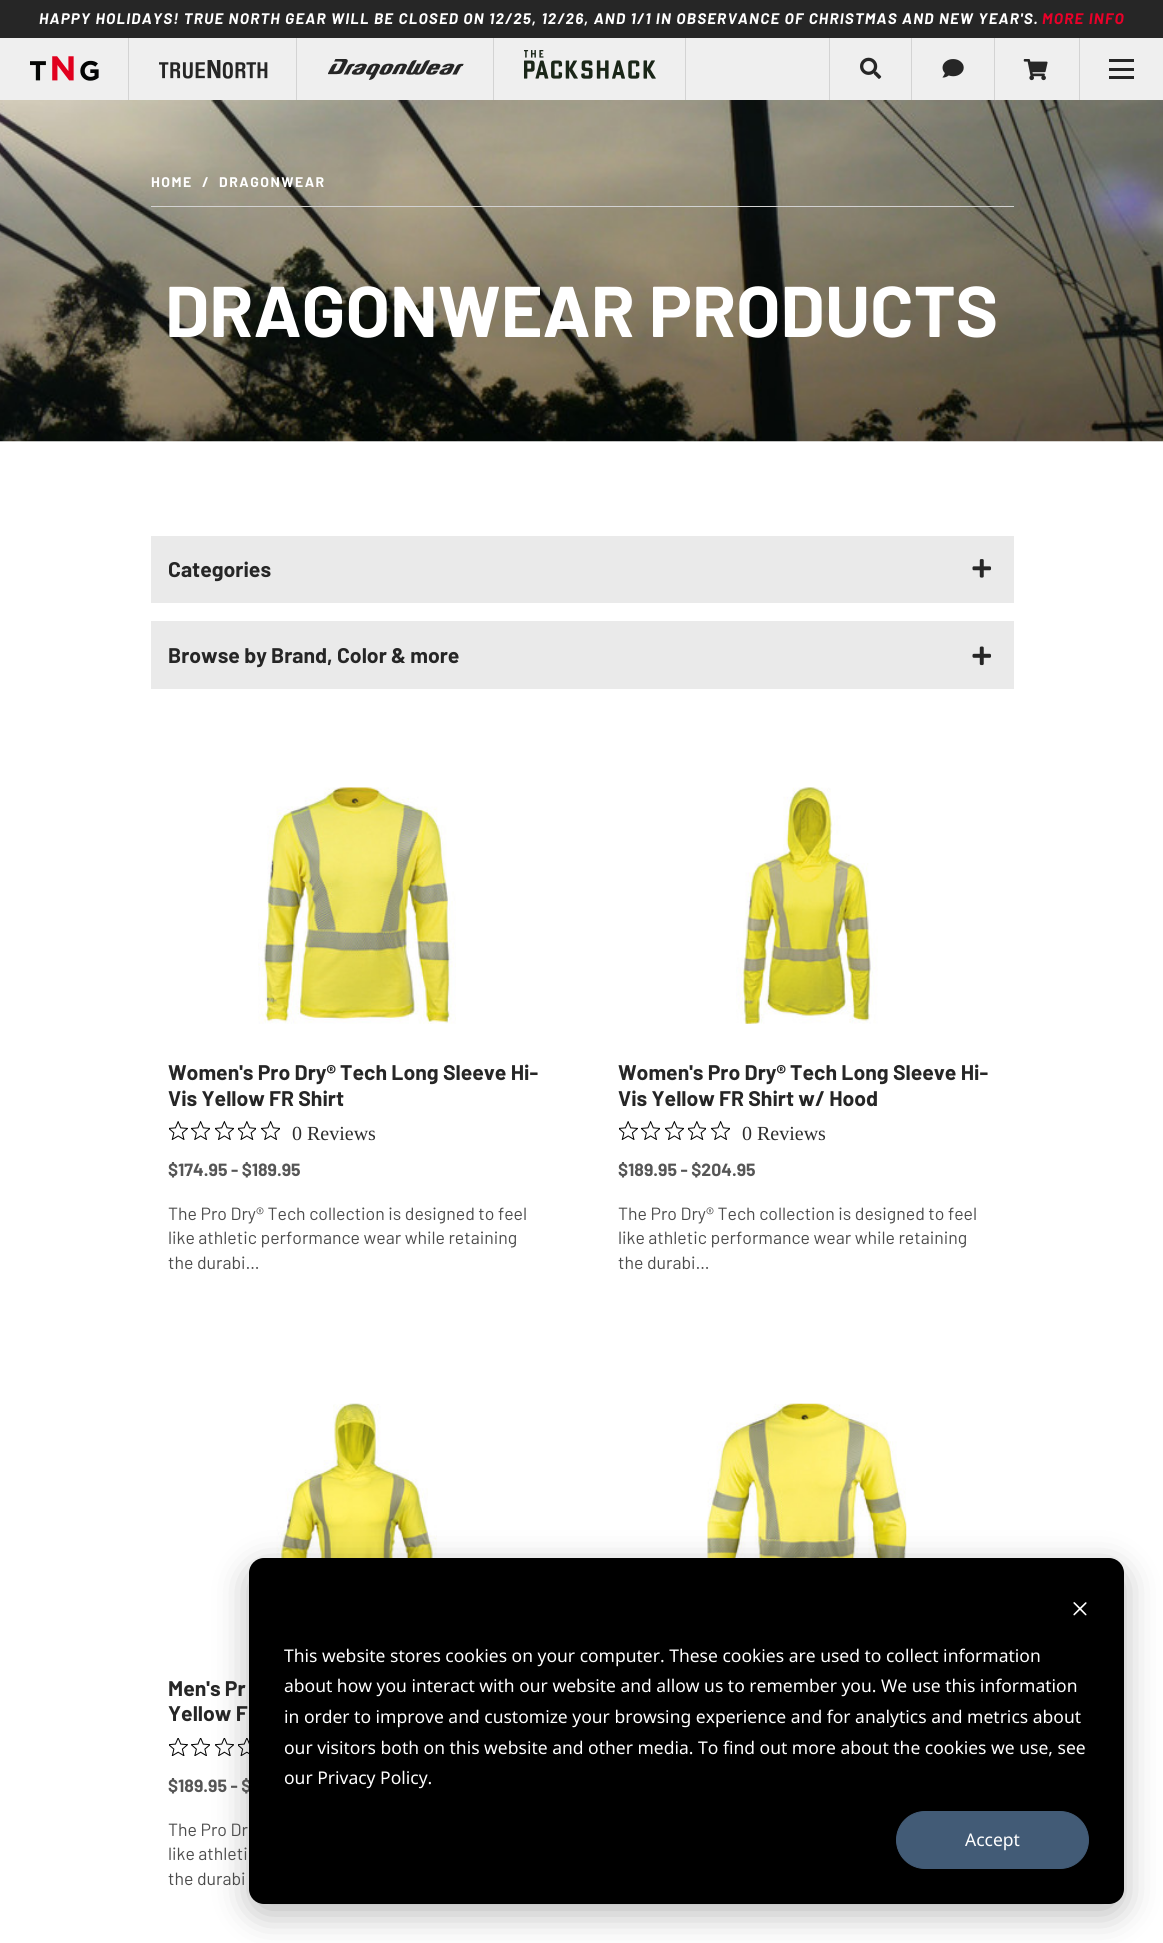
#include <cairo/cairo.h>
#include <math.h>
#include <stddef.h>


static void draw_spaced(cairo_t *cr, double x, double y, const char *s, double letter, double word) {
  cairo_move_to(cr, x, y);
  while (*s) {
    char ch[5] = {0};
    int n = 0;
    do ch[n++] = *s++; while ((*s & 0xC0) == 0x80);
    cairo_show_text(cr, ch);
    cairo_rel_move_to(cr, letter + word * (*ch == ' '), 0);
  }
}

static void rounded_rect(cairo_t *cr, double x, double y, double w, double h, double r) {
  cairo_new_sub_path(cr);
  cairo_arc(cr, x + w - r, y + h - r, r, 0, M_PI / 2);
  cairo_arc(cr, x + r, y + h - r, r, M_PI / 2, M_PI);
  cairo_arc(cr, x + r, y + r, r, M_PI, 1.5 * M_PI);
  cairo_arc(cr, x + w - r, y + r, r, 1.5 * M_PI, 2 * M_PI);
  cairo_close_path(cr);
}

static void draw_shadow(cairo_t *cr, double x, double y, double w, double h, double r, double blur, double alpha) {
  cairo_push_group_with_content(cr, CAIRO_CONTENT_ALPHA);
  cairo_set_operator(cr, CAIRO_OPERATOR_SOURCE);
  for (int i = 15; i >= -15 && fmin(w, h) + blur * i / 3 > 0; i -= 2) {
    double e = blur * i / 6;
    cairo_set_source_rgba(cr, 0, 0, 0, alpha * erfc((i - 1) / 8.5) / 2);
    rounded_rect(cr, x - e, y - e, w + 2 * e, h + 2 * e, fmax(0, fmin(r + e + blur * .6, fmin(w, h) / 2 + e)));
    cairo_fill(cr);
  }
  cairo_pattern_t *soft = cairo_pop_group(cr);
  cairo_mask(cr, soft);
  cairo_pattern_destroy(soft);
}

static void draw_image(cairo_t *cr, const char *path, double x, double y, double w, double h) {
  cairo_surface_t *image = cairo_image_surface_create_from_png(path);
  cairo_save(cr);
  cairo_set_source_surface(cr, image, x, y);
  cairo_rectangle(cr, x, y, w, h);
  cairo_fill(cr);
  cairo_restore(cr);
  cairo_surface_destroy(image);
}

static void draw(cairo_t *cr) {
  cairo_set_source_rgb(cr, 1, 1, 1);
  cairo_paint(cr);
  cairo_set_source_rgb(cr, 38 / 255.0, 38 / 255.0, 38 / 255.0);
  cairo_rectangle(cr, 0, 0, 1163, 38);
  cairo_fill(cr);
  cairo_set_source_rgb(cr, 239 / 255.0, 239 / 255.0, 239 / 255.0);
  cairo_rectangle(cr, 0, 38, 1163, 62);
  cairo_fill(cr);
  cairo_set_source_rgb(cr, 211 / 255.0, 211 / 255.0, 211 / 255.0);
  cairo_rectangle(cr, 128, 38, 1, 62);
  cairo_fill(cr);
  draw_image(cr, "images/1.png", 30, 56, 69, 25);
  cairo_rectangle(cr, 296, 38, 1, 62);
  cairo_fill(cr);
  draw_image(cr, "images/2.png", 159, 60, 109, 19);
  cairo_rectangle(cr, 493, 38, 1, 62);
  cairo_fill(cr);
  draw_image(cr, "images/3.png", 328, 59, 136, 21);
  cairo_rectangle(cr, 685, 38, 1, 62);
  cairo_fill(cr);
  draw_image(cr, "images/4.png", 524, 50, 132, 29);
  cairo_rectangle(cr, 829, 38, 1, 62);
  cairo_fill(cr);
  draw_image(cr, "images/5.png", 860, 57, 22, 22);
  cairo_rectangle(cr, 911, 38, 1, 62);
  cairo_fill(cr);
  draw_image(cr, "images/6.png", 942, 59, 22, 19);
  cairo_rectangle(cr, 994, 38, 1, 62);
  cairo_fill(cr);
  draw_image(cr, "images/7.png", 1023, 59, 25, 22);
  cairo_rectangle(cr, 1079, 38, 1, 62);
  cairo_fill(cr);
  cairo_set_source_rgb(cr, 38 / 255.0, 38 / 255.0, 38 / 255.0);
  cairo_rectangle(cr, 1109, 68, 25, 3);
  cairo_fill(cr);
  cairo_rectangle(cr, 1109, 59, 25, 3);
  cairo_fill(cr);
  cairo_rectangle(cr, 1109, 76, 25, 3);
  cairo_fill(cr);
  draw_image(cr, "images/8.png", 0, 100, 1163, 342);
  cairo_set_source_rgb(cr, 211 / 255.0, 211 / 255.0, 211 / 255.0);
  cairo_rectangle(cr, 151, 206, 863, 1);
  cairo_fill(cr);
  cairo_set_source_rgb(cr, 234 / 255.0, 234 / 255.0, 234 / 255.0);
  cairo_rectangle(cr, 151, 536, 863, 67);
  cairo_fill(cr);
  draw_image(cr, "images/9.png", 972, 559, 20, 19);
  cairo_rectangle(cr, 151, 621, 863, 68);
  cairo_fill(cr);
  draw_image(cr, "images/10.png", 972, 646, 20, 20);
  draw_image(cr, "images/11.png", 258, 787, 198, 237);
  draw_image(cr, "images/12.png", 169, 1121, 19, 19);
  draw_image(cr, "images/13.png", 191, 1121, 19, 19);
  draw_image(cr, "images/14.png", 215, 1121, 19, 19);
  draw_image(cr, "images/15.png", 238, 1121, 18, 19);
  draw_image(cr, "images/13.png", 261, 1121, 19, 19);
  draw_image(cr, "images/16.png", 736, 787, 142, 237);
  draw_image(cr, "images/12.png", 619, 1121, 19, 19);
  draw_image(cr, "images/13.png", 641, 1121, 19, 19);
  draw_image(cr, "images/14.png", 665, 1121, 19, 19);
  draw_image(cr, "images/15.png", 688, 1121, 18, 19);
  draw_image(cr, "images/13.png", 711, 1121, 19, 19);
  draw_image(cr, "images/17.png", 707, 1403, 200, 155);
  draw_image(cr, "images/18.png", 276, 1403, 161, 155);
  draw_image(cr, "images/19.png", 169, 1738, 19, 18);
  draw_image(cr, "images/20.png", 191, 1738, 19, 18);
  draw_image(cr, "images/21.png", 215, 1738, 19, 18);
  draw_image(cr, "images/22.png", 238, 1738, 11, 18);
  cairo_set_source_rgb(cr, 0, 0, 0);
  draw_shadow(cr, 249, 1568, 875, 346, 15, 17.5, 0.28);
  cairo_select_font_face(cr, "Barlow", CAIRO_FONT_SLANT_ITALIC, CAIRO_FONT_WEIGHT_BOLD);
  cairo_set_font_size(cr, 15.3);
  cairo_set_source_rgb(cr, 1, 1, 1);
  draw_spaced(cr, 39, 24, "HAPPY HOLIDAYS! TRUE NORTH GEAR WILL BE CLOSED ON 12/25, 12/26, AND 1/1 IN OBSERVANCE OF CHRISTMAS AND NEW YEAR'S.", 1.22, 0);
  cairo_set_source_rgb(cr, 234 / 255.0, 0, 41 / 255.0);
  draw_spaced(cr, 1042, 24, "MORE INFO", 1.22, 0);
  cairo_select_font_face(cr, "Barlow", CAIRO_FONT_SLANT_NORMAL, CAIRO_FONT_WEIGHT_BOLD);
  cairo_set_font_size(cr, 14);
  cairo_set_source_rgb(cr, 1, 1, 1);
  draw_spaced(cr, 151, 187, "HOME", 1.5, 0);
  draw_spaced(cr, 202, 187, "/", 1.5, 0);
  draw_spaced(cr, 219, 187, "DRAGONWEAR", 1.5, 0);
  cairo_set_font_size(cr, 71.75);
  cairo_move_to(cr, 165, 337);
  cairo_show_text(cr, "DRAGONWEAR PRODUCTS");
  cairo_set_font_size(cr, 21.2);
  cairo_set_source_rgb(cr, 38 / 255.0, 38 / 255.0, 38 / 255.0);
  cairo_move_to(cr, 168, 577);
  cairo_show_text(cr, "Categories");
  cairo_move_to(cr, 168, 663);
  cairo_show_text(cr, "Browse by Brand, Color & more");
  cairo_move_to(cr, 168, 1080);
  cairo_show_text(cr, "Women's Pro Dry® Tech Long Sleeve Hi-");
  cairo_move_to(cr, 168, 1106);
  cairo_show_text(cr, "Vis Yellow FR Shirt");
  cairo_select_font_face(cr, "Liberation Serif", CAIRO_FONT_SLANT_NORMAL, CAIRO_FONT_WEIGHT_NORMAL);
  cairo_set_font_size(cr, 20);
  cairo_set_source_rgb(cr, 44 / 255.0, 44 / 255.0, 44 / 255.0);
  cairo_move_to(cr, 292, 1140);
  cairo_show_text(cr, "0 Reviews");
  cairo_select_font_face(cr, "Barlow", CAIRO_FONT_SLANT_NORMAL, CAIRO_FONT_WEIGHT_BOLD);
  cairo_set_font_size(cr, 17.65);
  cairo_set_source_rgb(cr, 86 / 255.0, 86 / 255.0, 86 / 255.0);
  cairo_move_to(cr, 168, 1176);
  cairo_show_text(cr, "$174.95 - $189.95");
  cairo_select_font_face(cr, "Barlow", CAIRO_FONT_SLANT_NORMAL, CAIRO_FONT_WEIGHT_NORMAL);
  cairo_set_source_rgb(cr, 77 / 255.0, 77 / 255.0, 77 / 255.0);
  cairo_move_to(cr, 168, 1220);
  cairo_show_text(cr, "The Pro Dry® Tech collection is designed to feel");
  cairo_move_to(cr, 168, 1244);
  cairo_show_text(cr, "like athletic performance wear while retaining");
  cairo_move_to(cr, 168, 1269);
  cairo_show_text(cr, "the durabi…");
  cairo_select_font_face(cr, "Barlow", CAIRO_FONT_SLANT_NORMAL, CAIRO_FONT_WEIGHT_BOLD);
  cairo_set_font_size(cr, 21.2);
  cairo_set_source_rgb(cr, 38 / 255.0, 38 / 255.0, 38 / 255.0);
  cairo_move_to(cr, 618, 1080);
  cairo_show_text(cr, "Women's Pro Dry® Tech Long Sleeve Hi-");
  cairo_move_to(cr, 618, 1106);
  cairo_show_text(cr, "Vis Yellow FR Shirt w/ Hood");
  cairo_select_font_face(cr, "Liberation Serif", CAIRO_FONT_SLANT_NORMAL, CAIRO_FONT_WEIGHT_NORMAL);
  cairo_set_font_size(cr, 20);
  cairo_set_source_rgb(cr, 44 / 255.0, 44 / 255.0, 44 / 255.0);
  cairo_move_to(cr, 742, 1140);
  cairo_show_text(cr, "0 Reviews");
  cairo_select_font_face(cr, "Barlow", CAIRO_FONT_SLANT_NORMAL, CAIRO_FONT_WEIGHT_BOLD);
  cairo_set_font_size(cr, 17.65);
  cairo_set_source_rgb(cr, 86 / 255.0, 86 / 255.0, 86 / 255.0);
  cairo_move_to(cr, 618, 1176);
  cairo_show_text(cr, "$189.95 - $204.95");
  cairo_select_font_face(cr, "Barlow", CAIRO_FONT_SLANT_NORMAL, CAIRO_FONT_WEIGHT_NORMAL);
  cairo_set_source_rgb(cr, 77 / 255.0, 77 / 255.0, 77 / 255.0);
  cairo_move_to(cr, 618, 1220);
  cairo_show_text(cr, "The Pro Dry® Tech collection is designed to feel");
  cairo_move_to(cr, 618, 1244);
  cairo_show_text(cr, "like athletic performance wear while retaining");
  cairo_move_to(cr, 618, 1269);
  cairo_show_text(cr, "the durabi…");
  cairo_select_font_face(cr, "Barlow", CAIRO_FONT_SLANT_NORMAL, CAIRO_FONT_WEIGHT_BOLD);
  cairo_set_font_size(cr, 21.2);
  cairo_set_source_rgb(cr, 38 / 255.0, 38 / 255.0, 38 / 255.0);
  cairo_move_to(cr, 168, 1696);
  cairo_show_text(cr, "Men's Pr");
  cairo_move_to(cr, 168, 1721);
  cairo_show_text(cr, "Yellow F");
  cairo_set_font_size(cr, 17.65);
  cairo_set_source_rgb(cr, 86 / 255.0, 86 / 255.0, 86 / 255.0);
  cairo_move_to(cr, 168, 1792);
  cairo_show_text(cr, "$189.95 - $");
  cairo_select_font_face(cr, "Barlow", CAIRO_FONT_SLANT_NORMAL, CAIRO_FONT_WEIGHT_NORMAL);
  cairo_set_source_rgb(cr, 77 / 255.0, 77 / 255.0, 77 / 255.0);
  cairo_move_to(cr, 168, 1836);
  cairo_show_text(cr, "The Pro Dr");
  cairo_move_to(cr, 168, 1860);
  cairo_show_text(cr, "like athleti");
  cairo_move_to(cr, 168, 1885);
  cairo_show_text(cr, "the durabi");
  cairo_set_source_rgb(cr, 0, 0, 0);
  rounded_rect(cr, 249, 1558, 875, 346, 15);
  cairo_fill(cr);
  draw_image(cr, "images/23.png", 1073, 1602, 14, 14);
  cairo_select_font_face(cr, "Noto Sans", CAIRO_FONT_SLANT_NORMAL, CAIRO_FONT_WEIGHT_NORMAL);
  cairo_set_font_size(cr, 17.5);
  cairo_set_source_rgb(cr, 1, 1, 1);
  cairo_move_to(cr, 284, 1662);
  cairo_show_text(cr, "This website stores cookies on your computer. These cookies are used to collect information");
  cairo_move_to(cr, 284, 1692);
  cairo_show_text(cr, "about how you interact with our website and allow us to remember you. We use this information");
  cairo_move_to(cr, 284, 1723);
  cairo_show_text(cr, "in order to improve and customize your browsing experience and for analytics and metrics about");
  cairo_move_to(cr, 284, 1754);
  cairo_show_text(cr, "our visitors both on this website and other media. To find out more about the cookies we use, see");
  cairo_move_to(cr, 284, 1784);
  cairo_show_text(cr, "our Privacy Policy.");
  cairo_set_source_rgb(cr, 66 / 255.0, 91 / 255.0, 118 / 255.0);
  rounded_rect(cr, 896.5, 1811.5, 192, 57, 28.5);
  cairo_fill_preserve(cr);
  cairo_set_line_width(cr, 1);
  cairo_stroke(cr);
  cairo_set_source_rgb(cr, 1, 1, 1);
  cairo_move_to(cr, 965, 1846);
  cairo_show_text(cr, "Accept");
}

int main(void) {
  cairo_surface_t *surface = cairo_image_surface_create(CAIRO_FORMAT_RGB24, 1163, 1943);
  cairo_t *cr = cairo_create(surface);
  cairo_font_options_t *options = cairo_font_options_create();
  cairo_font_options_set_hint_metrics(options, CAIRO_HINT_METRICS_OFF);
  cairo_font_options_set_hint_style(options, CAIRO_HINT_STYLE_NONE);
  cairo_set_font_options(cr, options);
  cairo_set_miter_limit(cr, 4);
  draw(cr);
  cairo_surface_write_to_png(surface, "out.png");
  cairo_font_options_destroy(options);
  cairo_destroy(cr);
  cairo_surface_destroy(surface);
  return 0;
}
